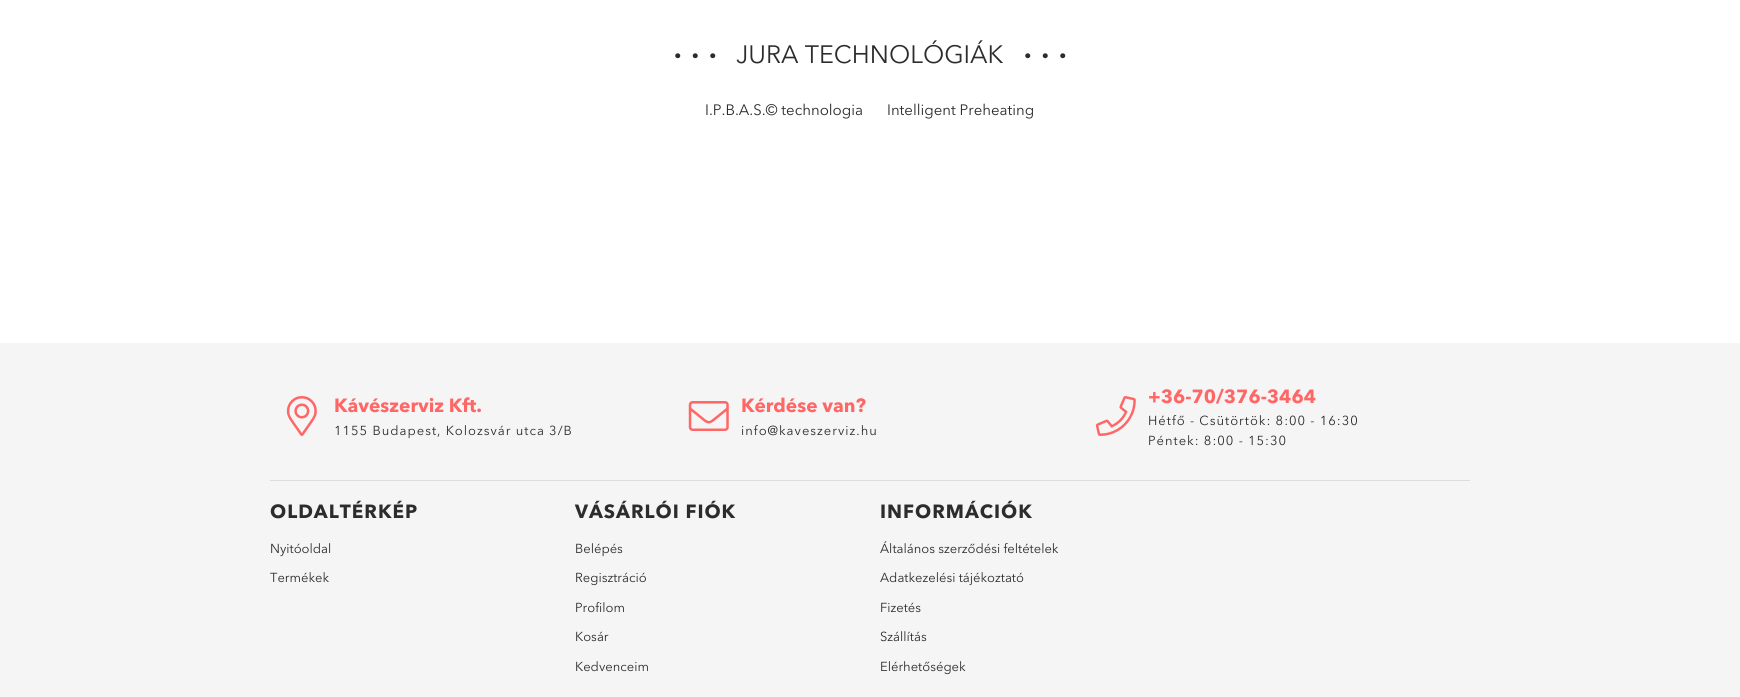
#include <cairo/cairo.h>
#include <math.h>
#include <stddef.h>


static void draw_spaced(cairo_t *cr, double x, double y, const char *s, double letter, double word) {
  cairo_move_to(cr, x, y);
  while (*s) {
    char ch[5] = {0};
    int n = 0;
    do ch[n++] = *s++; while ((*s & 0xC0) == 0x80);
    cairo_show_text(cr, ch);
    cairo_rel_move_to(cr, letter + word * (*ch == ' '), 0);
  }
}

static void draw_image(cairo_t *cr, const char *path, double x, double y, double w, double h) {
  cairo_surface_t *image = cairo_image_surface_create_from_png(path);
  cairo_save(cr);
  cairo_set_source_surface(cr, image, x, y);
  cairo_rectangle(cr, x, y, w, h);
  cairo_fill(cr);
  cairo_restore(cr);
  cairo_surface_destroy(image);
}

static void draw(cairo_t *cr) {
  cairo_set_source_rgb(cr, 1, 1, 1);
  cairo_paint(cr);
  cairo_set_source_rgb(cr, 245 / 255.0, 245 / 255.0, 245 / 255.0);
  cairo_rectangle(cr, 0, 343, 1740, 354);
  cairo_fill(cr);
  draw_image(cr, "images/1.png", 286, 396, 31, 40);
  draw_image(cr, "images/2.png", 688, 401, 41, 30);
  draw_image(cr, "images/3.png", 1095, 396, 41, 40);
  cairo_set_source_rgb(cr, 221 / 255.0, 221 / 255.0, 221 / 255.0);
  cairo_rectangle(cr, 270, 480, 1200, 1);
  cairo_fill(cr);
  cairo_select_font_face(cr, "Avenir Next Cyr", CAIRO_FONT_SLANT_NORMAL, CAIRO_FONT_WEIGHT_BOLD);
  cairo_set_font_size(cr, 25);
  cairo_set_source_rgb(cr, 44 / 255.0, 44 / 255.0, 44 / 255.0);
  draw_spaced(cr, 674, 63, "∙∙∙", 10, 0);
  cairo_select_font_face(cr, "Avenir Next Cyr", CAIRO_FONT_SLANT_NORMAL, CAIRO_FONT_WEIGHT_NORMAL);
  cairo_move_to(cr, 736, 63);
  cairo_show_text(cr, "JURA TECHNOLÓGIÁK");
  cairo_select_font_face(cr, "Avenir Next Cyr", CAIRO_FONT_SLANT_NORMAL, CAIRO_FONT_WEIGHT_BOLD);
  draw_spaced(cr, 1024, 63, "∙∙∙", 10, 0);
  cairo_select_font_face(cr, "Avenir Next Cyr", CAIRO_FONT_SLANT_NORMAL, CAIRO_FONT_WEIGHT_NORMAL);
  cairo_set_font_size(cr, 15);
  cairo_move_to(cr, 705, 115);
  cairo_show_text(cr, "I.P.B.A.S.© technologia");
  cairo_move_to(cr, 887, 115);
  cairo_show_text(cr, "Intelligent Preheating");
  cairo_select_font_face(cr, "Avenir Next Cyr", CAIRO_FONT_SLANT_NORMAL, CAIRO_FONT_WEIGHT_BOLD);
  cairo_set_font_size(cr, 19);
  cairo_set_source_rgb(cr, 1, 102 / 255.0, 102 / 255.0);
  cairo_move_to(cr, 334, 412);
  cairo_show_text(cr, "Kávészerviz Kft.");
  cairo_select_font_face(cr, "Avenir Next Cyr", CAIRO_FONT_SLANT_NORMAL, CAIRO_FONT_WEIGHT_NORMAL);
  cairo_set_font_size(cr, 13);
  cairo_set_source_rgb(cr, 44 / 255.0, 44 / 255.0, 44 / 255.0);
  draw_spaced(cr, 334, 435, "1155 Budapest, Kolozsvár utca 3/B", 1, 0);
  cairo_select_font_face(cr, "Avenir Next Cyr", CAIRO_FONT_SLANT_NORMAL, CAIRO_FONT_WEIGHT_BOLD);
  cairo_set_font_size(cr, 19);
  cairo_set_source_rgb(cr, 1, 102 / 255.0, 102 / 255.0);
  cairo_move_to(cr, 741, 412);
  cairo_show_text(cr, "Kérdése van?");
  cairo_select_font_face(cr, "Avenir Next Cyr", CAIRO_FONT_SLANT_NORMAL, CAIRO_FONT_WEIGHT_NORMAL);
  cairo_set_font_size(cr, 13);
  cairo_set_source_rgb(cr, 44 / 255.0, 44 / 255.0, 44 / 255.0);
  draw_spaced(cr, 741, 435, "info@kaveszerviz.hu", 1, 0);
  cairo_select_font_face(cr, "Avenir Next Cyr", CAIRO_FONT_SLANT_NORMAL, CAIRO_FONT_WEIGHT_BOLD);
  cairo_set_font_size(cr, 19);
  cairo_set_source_rgb(cr, 1, 102 / 255.0, 102 / 255.0);
  cairo_move_to(cr, 1148, 403);
  cairo_show_text(cr, "+36-70/376-3464");
  cairo_select_font_face(cr, "Avenir Next Cyr", CAIRO_FONT_SLANT_NORMAL, CAIRO_FONT_WEIGHT_NORMAL);
  cairo_set_font_size(cr, 13);
  cairo_set_source_rgb(cr, 44 / 255.0, 44 / 255.0, 44 / 255.0);
  draw_spaced(cr, 1148, 425, "Hétfő - Csütörtök: 8:00 - 16:30", 1, 0);
  draw_spaced(cr, 1148, 445, "Péntek: 8:00 - 15:30", 1, 0);
  cairo_select_font_face(cr, "Avenir Next Cyr", CAIRO_FONT_SLANT_NORMAL, CAIRO_FONT_WEIGHT_BOLD);
  cairo_set_font_size(cr, 19);
  draw_spaced(cr, 270, 518, "OLDALTÉRKÉP", 1, 0);
  cairo_select_font_face(cr, "Avenir Next Cyr", CAIRO_FONT_SLANT_NORMAL, CAIRO_FONT_WEIGHT_NORMAL);
  cairo_set_font_size(cr, 13);
  cairo_move_to(cr, 270, 553);
  cairo_show_text(cr, "Nyitóoldal");
  cairo_move_to(cr, 270, 582);
  cairo_show_text(cr, "Termékek");
  cairo_select_font_face(cr, "Avenir Next Cyr", CAIRO_FONT_SLANT_NORMAL, CAIRO_FONT_WEIGHT_BOLD);
  cairo_set_font_size(cr, 19);
  draw_spaced(cr, 575, 518, "VÁSÁRLÓI FIÓK", 1, 0);
  cairo_select_font_face(cr, "Avenir Next Cyr", CAIRO_FONT_SLANT_NORMAL, CAIRO_FONT_WEIGHT_NORMAL);
  cairo_set_font_size(cr, 13);
  cairo_move_to(cr, 575, 553);
  cairo_show_text(cr, "Belépés");
  cairo_move_to(cr, 575, 582);
  cairo_show_text(cr, "Regisztráció");
  cairo_move_to(cr, 575, 612);
  cairo_show_text(cr, "Profilom");
  cairo_move_to(cr, 575, 641);
  cairo_show_text(cr, "Kosár");
  cairo_move_to(cr, 575, 671);
  cairo_show_text(cr, "Kedvenceim");
  cairo_select_font_face(cr, "Avenir Next Cyr", CAIRO_FONT_SLANT_NORMAL, CAIRO_FONT_WEIGHT_BOLD);
  cairo_set_font_size(cr, 19);
  draw_spaced(cr, 880, 518, "INFORMÁCIÓK", 1, 0);
  cairo_select_font_face(cr, "Avenir Next Cyr", CAIRO_FONT_SLANT_NORMAL, CAIRO_FONT_WEIGHT_NORMAL);
  cairo_set_font_size(cr, 13);
  cairo_move_to(cr, 880, 553);
  cairo_show_text(cr, "Általános szerződési feltételek");
  cairo_move_to(cr, 880, 582);
  cairo_show_text(cr, "Adatkezelési tájékoztató");
  cairo_move_to(cr, 880, 612);
  cairo_show_text(cr, "Fizetés");
  cairo_move_to(cr, 880, 641);
  cairo_show_text(cr, "Szállítás");
  cairo_move_to(cr, 880, 671);
  cairo_show_text(cr, "Elérhetőségek");
}

int main(void) {
  cairo_surface_t *surface = cairo_image_surface_create(CAIRO_FORMAT_RGB24, 1740, 697);
  cairo_t *cr = cairo_create(surface);
  cairo_font_options_t *options = cairo_font_options_create();
  cairo_font_options_set_hint_metrics(options, CAIRO_HINT_METRICS_OFF);
  cairo_font_options_set_hint_style(options, CAIRO_HINT_STYLE_NONE);
  cairo_set_font_options(cr, options);
  cairo_set_miter_limit(cr, 4);
  draw(cr);
  cairo_surface_write_to_png(surface, "out.png");
  cairo_font_options_destroy(options);
  cairo_destroy(cr);
  cairo_surface_destroy(surface);
  return 0;
}
